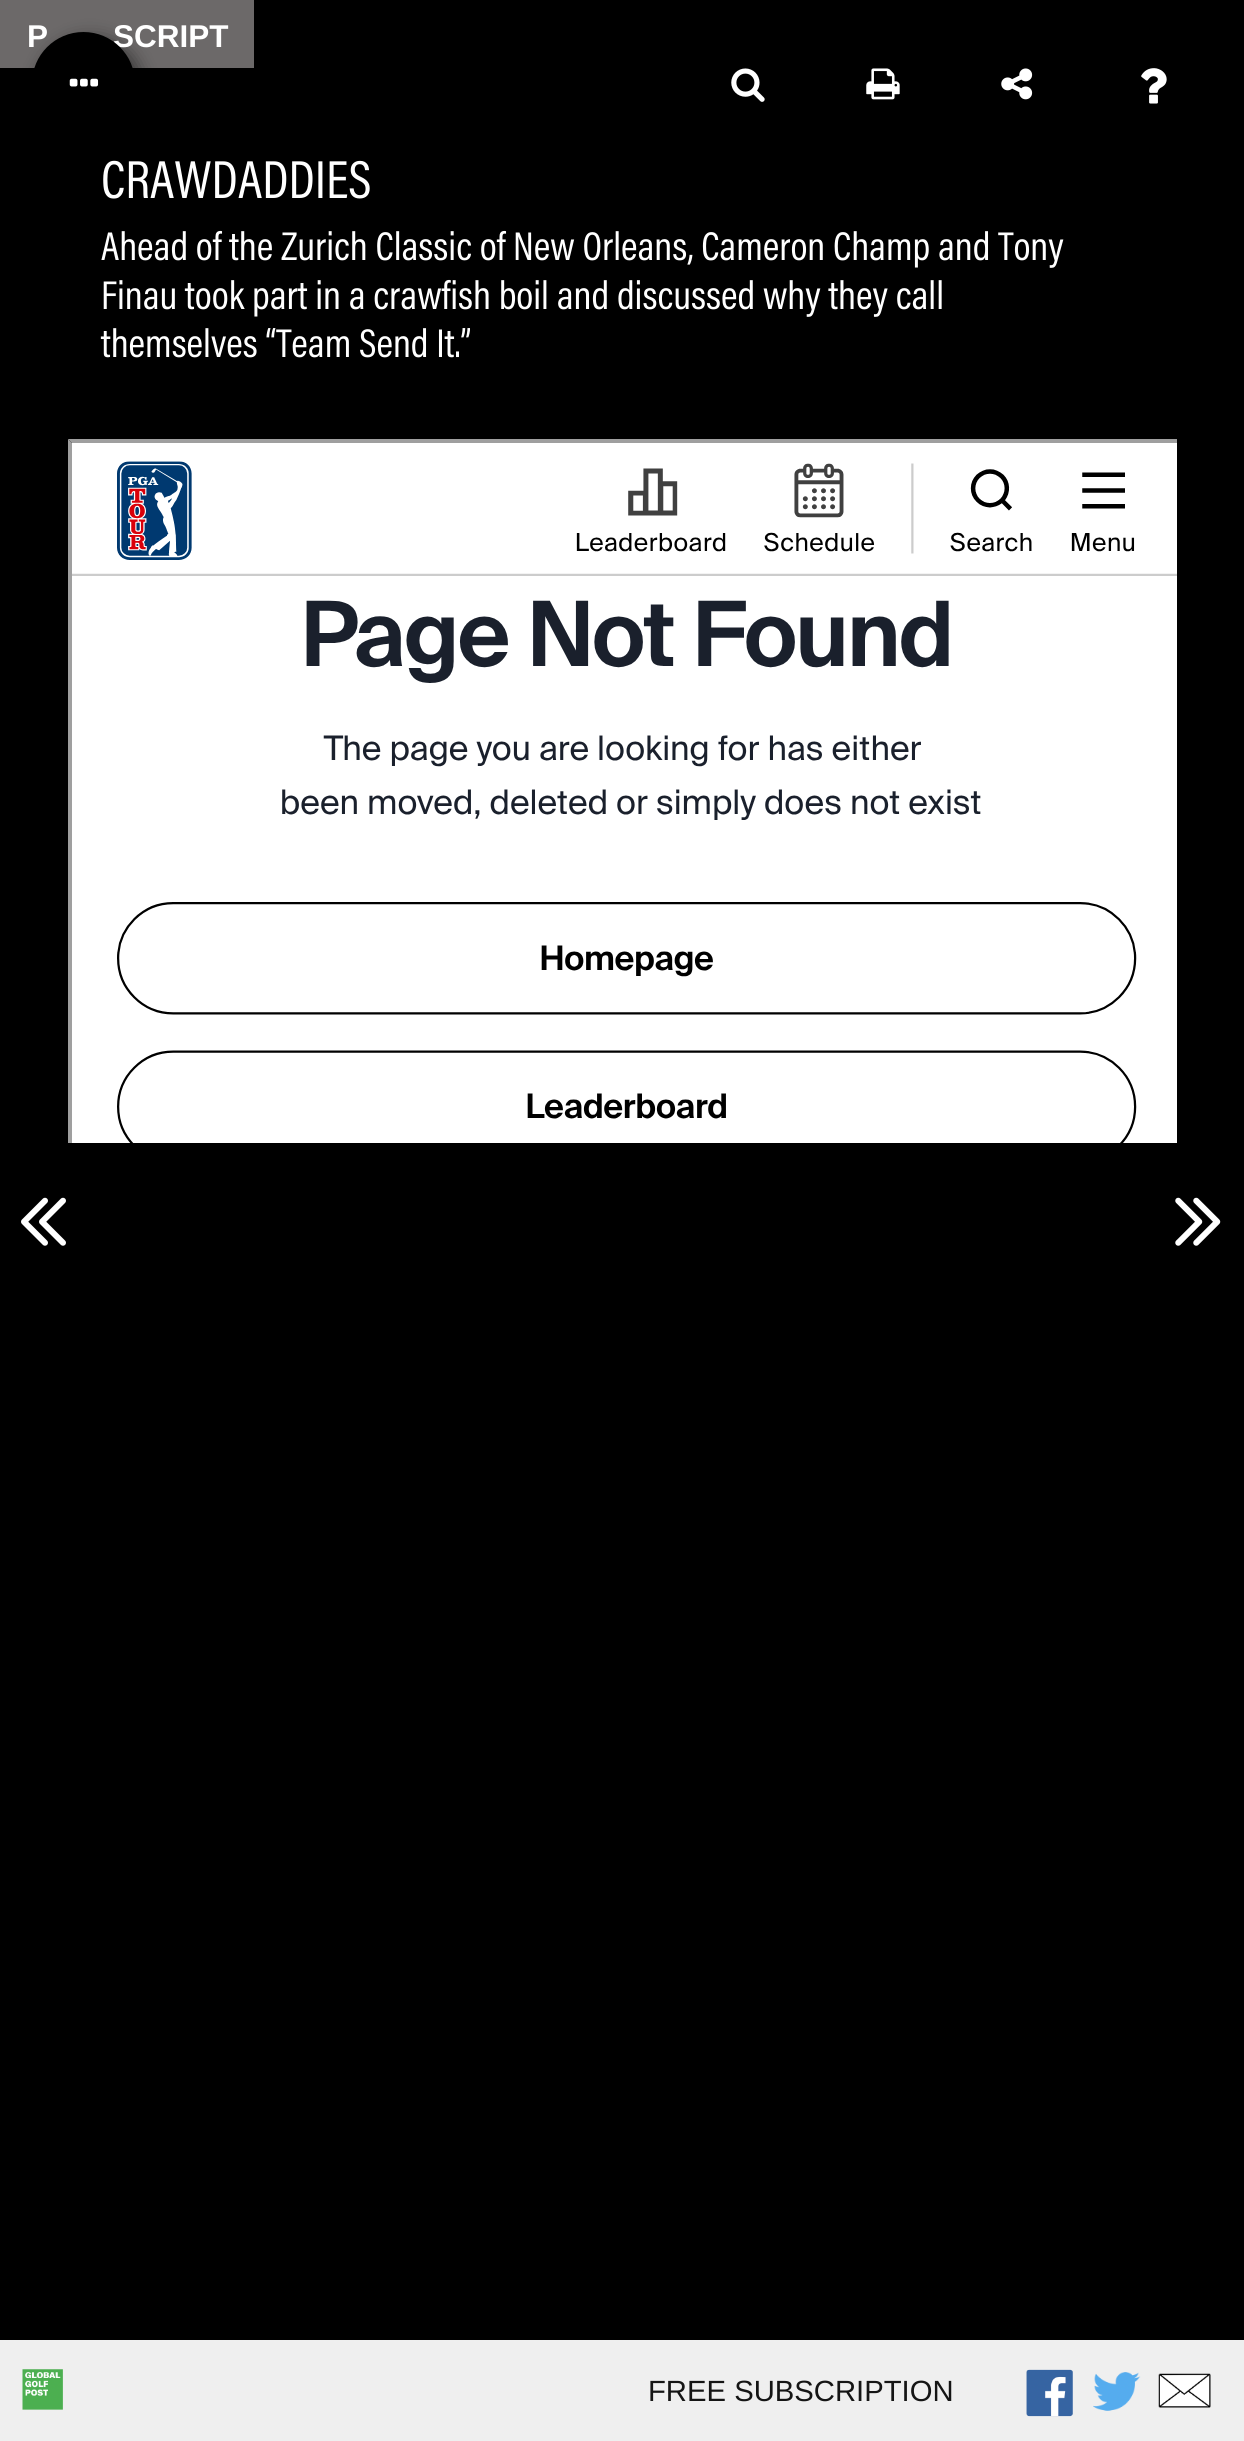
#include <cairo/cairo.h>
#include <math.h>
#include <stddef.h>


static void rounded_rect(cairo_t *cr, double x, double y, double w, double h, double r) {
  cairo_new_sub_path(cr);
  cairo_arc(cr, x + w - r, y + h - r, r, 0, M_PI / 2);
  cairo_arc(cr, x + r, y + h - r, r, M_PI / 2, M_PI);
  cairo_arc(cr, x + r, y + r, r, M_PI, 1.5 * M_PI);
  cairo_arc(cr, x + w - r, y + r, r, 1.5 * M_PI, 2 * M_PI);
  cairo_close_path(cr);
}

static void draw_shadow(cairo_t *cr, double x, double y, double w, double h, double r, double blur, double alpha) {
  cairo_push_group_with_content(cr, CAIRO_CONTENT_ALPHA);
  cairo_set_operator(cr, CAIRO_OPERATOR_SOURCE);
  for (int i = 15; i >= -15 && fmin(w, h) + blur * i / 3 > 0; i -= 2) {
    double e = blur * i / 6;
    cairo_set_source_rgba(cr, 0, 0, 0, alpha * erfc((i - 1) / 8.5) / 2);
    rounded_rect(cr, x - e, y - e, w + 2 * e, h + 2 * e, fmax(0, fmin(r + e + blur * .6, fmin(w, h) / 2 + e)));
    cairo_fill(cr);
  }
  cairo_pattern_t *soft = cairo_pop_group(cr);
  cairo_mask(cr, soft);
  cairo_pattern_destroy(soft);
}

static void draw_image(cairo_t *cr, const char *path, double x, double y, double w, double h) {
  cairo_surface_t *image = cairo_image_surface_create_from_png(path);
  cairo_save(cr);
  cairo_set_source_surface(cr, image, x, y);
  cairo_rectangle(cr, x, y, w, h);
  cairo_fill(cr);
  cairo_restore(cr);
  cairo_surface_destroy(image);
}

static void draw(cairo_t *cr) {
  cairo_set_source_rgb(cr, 0, 0, 0);
  cairo_paint(cr);
  cairo_set_source_rgb(cr, 108 / 255.0, 105 / 255.0, 105 / 255.0);
  cairo_rectangle(cr, 0, 0, 254, 68);
  cairo_fill(cr);
  cairo_save(cr);
  cairo_rectangle(cr, 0, 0, 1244, 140);
  cairo_clip(cr);
  cairo_set_source_rgb(cr, 0, 0, 0);
  draw_shadow(cr, 38, 38, 104, 104, 52, 9, 0.5);
  cairo_restore(cr);
  draw_image(cr, "images/2.png", 731, 68, 34, 34);
  draw_image(cr, "images/3.png", 866, 68, 34, 32);
  draw_image(cr, "images/4.png", 1001, 68, 32, 32);
  draw_image(cr, "images/5.png", 1141, 68, 26, 36);
  cairo_save(cr);
  cairo_rectangle(cr, 68, 439, 1109, 704);
  cairo_clip(cr);
  cairo_set_source_rgb(cr, 159 / 255.0, 159 / 255.0, 159 / 255.0);
  cairo_new_path(cr);
  cairo_move_to(cr, 68, 439);
  cairo_line_to(cr, 1186, 439);
  cairo_line_to(cr, 1181, 443);
  cairo_line_to(cr, 72, 443);
  cairo_close_path(cr);
  cairo_fill(cr);
  cairo_new_path(cr);
  cairo_move_to(cr, 68, 1152);
  cairo_line_to(cr, 68, 439);
  cairo_line_to(cr, 72, 443);
  cairo_line_to(cr, 72, 1148);
  cairo_close_path(cr);
  cairo_fill(cr);
  cairo_restore(cr);
  draw_image(cr, "images/6.png", 72, 443, 1105, 700);
  cairo_set_source_rgb(cr, 239 / 255.0, 239 / 255.0, 239 / 255.0);
  cairo_rectangle(cr, 0, 2340, 1244, 101);
  cairo_fill(cr);
  draw_image(cr, "images/7.png", 22, 2369, 41, 41);
  draw_image(cr, "images/8.png", 1026, 2369, 47, 48);
  draw_image(cr, "images/9.png", 1093, 2372, 48, 39);
  draw_image(cr, "images/10.png", 1158, 2373, 53, 35);
  draw_image(cr, "images/11.png", 21, 1197, 45, 49);
  draw_image(cr, "images/12.png", 1175, 1197, 46, 49);
  cairo_select_font_face(cr, "Liberation Sans", CAIRO_FONT_SLANT_NORMAL, CAIRO_FONT_WEIGHT_BOLD);
  cairo_set_font_size(cr, 31.5);
  cairo_set_source_rgb(cr, 1, 1, 1);
  cairo_move_to(cr, 27, 47);
  cairo_show_text(cr, "P");
  cairo_move_to(cr, 113, 47);
  cairo_show_text(cr, "SCRIPT");
  cairo_set_source_rgb(cr, 0, 0, 0);
  cairo_new_path(cr);
  cairo_arc(cr, 83.5, 83.5, 51.5, 0, 2 * M_PI);
  cairo_fill(cr);
  draw_image(cr, "images/1.png", 69, 78, 30, 9);
  cairo_select_font_face(cr, "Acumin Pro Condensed", CAIRO_FONT_SLANT_NORMAL, CAIRO_FONT_WEIGHT_NORMAL);
  cairo_set_font_size(cr, 54);
  cairo_set_source_rgb(cr, 1, 1, 1);
  cairo_move_to(cr, 101, 198);
  cairo_show_text(cr, "CRAWDADDIES");
  cairo_set_font_size(cr, 40.5);
  cairo_move_to(cr, 101, 260);
  cairo_show_text(cr, "Ahead of the Zurich Classic of New Orleans, Cameron Champ and Tony");
  cairo_move_to(cr, 101, 309);
  cairo_show_text(cr, "Finau took part in a crawfish boil and discussed why they call");
  cairo_move_to(cr, 101, 357);
  cairo_show_text(cr, "themselves “Team Send It.”");
  cairo_select_font_face(cr, "Liberation Sans", CAIRO_FONT_SLANT_NORMAL, CAIRO_FONT_WEIGHT_NORMAL);
  cairo_set_font_size(cr, 29.25);
  cairo_set_source_rgb(cr, 21 / 255.0, 21 / 255.0, 21 / 255.0);
  cairo_move_to(cr, 648, 2401);
  cairo_show_text(cr, "FREE SUBSCRIPTION");
}

int main(void) {
  cairo_surface_t *surface = cairo_image_surface_create(CAIRO_FORMAT_RGB24, 1244, 2441);
  cairo_t *cr = cairo_create(surface);
  cairo_font_options_t *options = cairo_font_options_create();
  cairo_font_options_set_hint_metrics(options, CAIRO_HINT_METRICS_OFF);
  cairo_font_options_set_hint_style(options, CAIRO_HINT_STYLE_NONE);
  cairo_set_font_options(cr, options);
  cairo_set_miter_limit(cr, 4);
  draw(cr);
  cairo_surface_write_to_png(surface, "out.png");
  cairo_font_options_destroy(options);
  cairo_destroy(cr);
  cairo_surface_destroy(surface);
  return 0;
}
